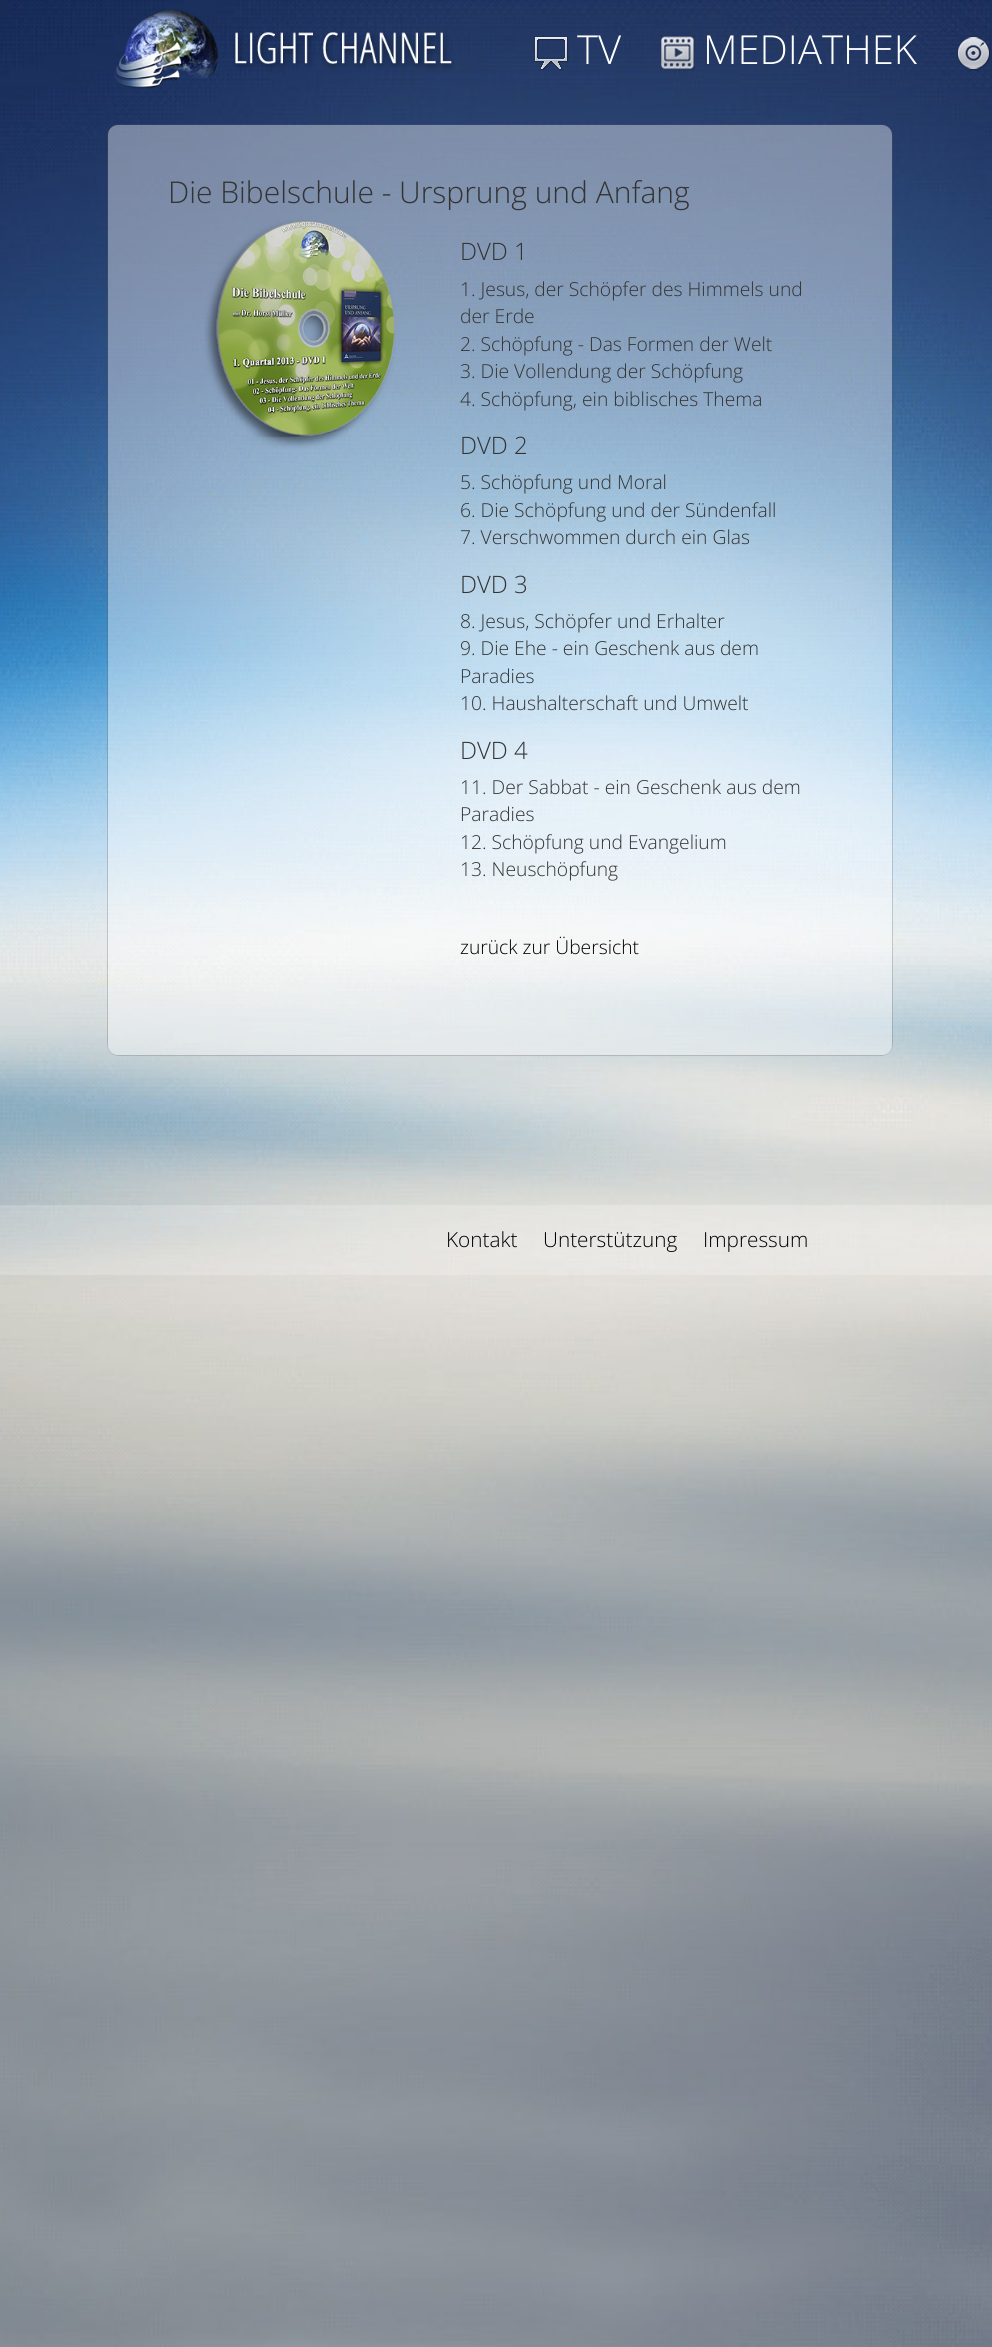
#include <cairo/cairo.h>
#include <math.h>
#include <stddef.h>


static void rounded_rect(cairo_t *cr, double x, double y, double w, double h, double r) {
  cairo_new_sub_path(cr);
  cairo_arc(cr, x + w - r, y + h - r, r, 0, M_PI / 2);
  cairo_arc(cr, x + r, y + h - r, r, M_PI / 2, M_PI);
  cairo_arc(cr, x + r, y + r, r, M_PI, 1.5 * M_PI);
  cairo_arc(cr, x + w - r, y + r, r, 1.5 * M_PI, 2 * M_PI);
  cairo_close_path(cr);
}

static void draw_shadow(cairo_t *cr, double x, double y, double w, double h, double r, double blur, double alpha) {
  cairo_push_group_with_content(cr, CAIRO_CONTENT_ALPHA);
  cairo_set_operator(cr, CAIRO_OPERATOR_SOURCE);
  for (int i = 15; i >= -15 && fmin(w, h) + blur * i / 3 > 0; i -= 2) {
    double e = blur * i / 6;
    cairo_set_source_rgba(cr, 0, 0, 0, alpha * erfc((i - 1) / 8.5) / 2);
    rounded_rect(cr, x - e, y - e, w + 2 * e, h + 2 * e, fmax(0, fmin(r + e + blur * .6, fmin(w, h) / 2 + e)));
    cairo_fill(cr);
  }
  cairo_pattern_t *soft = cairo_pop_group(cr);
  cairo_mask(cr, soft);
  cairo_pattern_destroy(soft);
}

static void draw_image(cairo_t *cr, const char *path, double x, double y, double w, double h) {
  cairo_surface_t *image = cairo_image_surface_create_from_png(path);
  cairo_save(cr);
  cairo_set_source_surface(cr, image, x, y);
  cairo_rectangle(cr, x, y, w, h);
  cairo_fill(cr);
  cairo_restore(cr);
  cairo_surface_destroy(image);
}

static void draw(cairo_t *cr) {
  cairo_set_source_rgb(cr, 1, 1, 1);
  cairo_paint(cr);
  draw_image(cr, "images/1.png", 0, 0, 992, 2347);
  draw_image(cr, "images/2.png", 114, 9, 341, 80);
  draw_image(cr, "images/3.png", 534, 36, 35, 35);
  draw_image(cr, "images/4.png", 660, 35, 35, 36);
  draw_image(cr, "images/5.png", 957, 36, 34, 35);
  cairo_save(cr);
  cairo_set_fill_rule(cr, CAIRO_FILL_RULE_EVEN_ODD);
  cairo_new_path(cr);
  cairo_move_to(cr, 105, 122);
  cairo_line_to(cr, 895, 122);
  cairo_line_to(cr, 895, 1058);
  cairo_line_to(cr, 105, 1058);
  cairo_close_path(cr);
  cairo_move_to(cr, 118, 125);
  cairo_line_to(cr, 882, 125);
  cairo_curve_to(cr, 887.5, 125, 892, 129.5, 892, 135);
  cairo_line_to(cr, 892, 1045);
  cairo_curve_to(cr, 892, 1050.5, 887.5, 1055, 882, 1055);
  cairo_line_to(cr, 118, 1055);
  cairo_curve_to(cr, 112.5, 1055, 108, 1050.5, 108, 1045);
  cairo_line_to(cr, 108, 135);
  cairo_curve_to(cr, 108, 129.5, 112.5, 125, 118, 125);
  cairo_close_path(cr);
  cairo_clip(cr);
  cairo_set_source_rgb(cr, 85 / 255.0, 85 / 255.0, 85 / 255.0);
  draw_shadow(cr, 108, 125, 784, 930, 10, 0.5, 1);
  cairo_restore(cr);
  cairo_set_source_rgba(cr, 1, 1, 1, 0.4);
  cairo_rectangle(cr, 118, 135, 764, 910);
  cairo_fill(cr);
  rounded_rect(cr, 113, 130, 774, 920, 5);
  cairo_set_line_width(cr, 10);
  cairo_stroke(cr);
  draw_image(cr, "images/6.png", 204, 220, 192, 229);
  cairo_set_source_rgba(cr, 1, 1, 1, 0.2);
  cairo_rectangle(cr, 0, 1205, 992, 70);
  cairo_fill(cr);
  cairo_select_font_face(cr, "Open Sans Light", CAIRO_FONT_SLANT_NORMAL, CAIRO_FONT_WEIGHT_NORMAL);
  cairo_set_font_size(cr, 40);
  cairo_set_source_rgb(cr, 1, 1, 1);
  cairo_move_to(cr, 577, 64);
  cairo_show_text(cr, "TV");
  cairo_move_to(cr, 703, 64);
  cairo_show_text(cr, "MEDIATHEK");
  cairo_set_font_size(cr, 30);
  cairo_set_source_rgb(cr, 51 / 255.0, 51 / 255.0, 51 / 255.0);
  cairo_move_to(cr, 168, 203);
  cairo_show_text(cr, "Die Bibelschule - Ursprung und Anfang");
  cairo_set_font_size(cr, 24);
  cairo_move_to(cr, 460, 260);
  cairo_show_text(cr, "DVD 1");
  cairo_set_font_size(cr, 19.25);
  cairo_move_to(cr, 460, 296);
  cairo_show_text(cr, "1. Jesus, der Schöpfer des Himmels und");
  cairo_move_to(cr, 460, 323);
  cairo_show_text(cr, "der Erde");
  cairo_move_to(cr, 460, 351);
  cairo_show_text(cr, "2. Schöpfung - Das Formen der Welt");
  cairo_move_to(cr, 460, 378);
  cairo_show_text(cr, "3. Die Vollendung der Schöpfung");
  cairo_move_to(cr, 460, 406);
  cairo_show_text(cr, "4. Schöpfung, ein biblisches Thema");
  cairo_set_font_size(cr, 24);
  cairo_move_to(cr, 460, 454);
  cairo_show_text(cr, "DVD 2");
  cairo_set_font_size(cr, 19.25);
  cairo_move_to(cr, 460, 489);
  cairo_show_text(cr, "5. Schöpfung und Moral");
  cairo_move_to(cr, 460, 517);
  cairo_show_text(cr, "6. Die Schöpfung und der Sündenfall");
  cairo_move_to(cr, 460, 544);
  cairo_show_text(cr, "7. Verschwommen durch ein Glas");
  cairo_set_font_size(cr, 24);
  cairo_move_to(cr, 460, 593);
  cairo_show_text(cr, "DVD 3");
  cairo_set_font_size(cr, 19.25);
  cairo_move_to(cr, 460, 628);
  cairo_show_text(cr, "8. Jesus, Schöpfer und Erhalter");
  cairo_move_to(cr, 460, 655);
  cairo_show_text(cr, "9. Die Ehe - ein Geschenk aus dem");
  cairo_move_to(cr, 460, 683);
  cairo_show_text(cr, "Paradies");
  cairo_move_to(cr, 460, 710);
  cairo_show_text(cr, "10. Haushalterschaft und Umwelt");
  cairo_set_font_size(cr, 24);
  cairo_move_to(cr, 460, 759);
  cairo_show_text(cr, "DVD 4");
  cairo_set_font_size(cr, 19.25);
  cairo_move_to(cr, 460, 794);
  cairo_show_text(cr, "11. Der Sabbat - ein Geschenk aus dem");
  cairo_move_to(cr, 460, 821);
  cairo_show_text(cr, "Paradies");
  cairo_move_to(cr, 460, 849);
  cairo_show_text(cr, "12. Schöpfung und Evangelium");
  cairo_move_to(cr, 460, 876);
  cairo_show_text(cr, "13. Neuschöpfung");
  cairo_set_source_rgb(cr, 0, 0, 0);
  cairo_move_to(cr, 460, 954);
  cairo_show_text(cr, "zurück zur Übersicht");
  cairo_set_font_size(cr, 20.75);
  cairo_move_to(cr, 446, 1247);
  cairo_show_text(cr, "Kontakt");
  cairo_move_to(cr, 543, 1247);
  cairo_show_text(cr, "Unterstützung");
  cairo_move_to(cr, 703, 1247);
  cairo_show_text(cr, "Impressum");
}

int main(void) {
  cairo_surface_t *surface = cairo_image_surface_create(CAIRO_FORMAT_RGB24, 992, 2347);
  cairo_t *cr = cairo_create(surface);
  cairo_font_options_t *options = cairo_font_options_create();
  cairo_font_options_set_hint_metrics(options, CAIRO_HINT_METRICS_OFF);
  cairo_font_options_set_hint_style(options, CAIRO_HINT_STYLE_NONE);
  cairo_set_font_options(cr, options);
  cairo_set_miter_limit(cr, 4);
  draw(cr);
  cairo_surface_write_to_png(surface, "out.png");
  cairo_font_options_destroy(options);
  cairo_destroy(cr);
  cairo_surface_destroy(surface);
  return 0;
}
